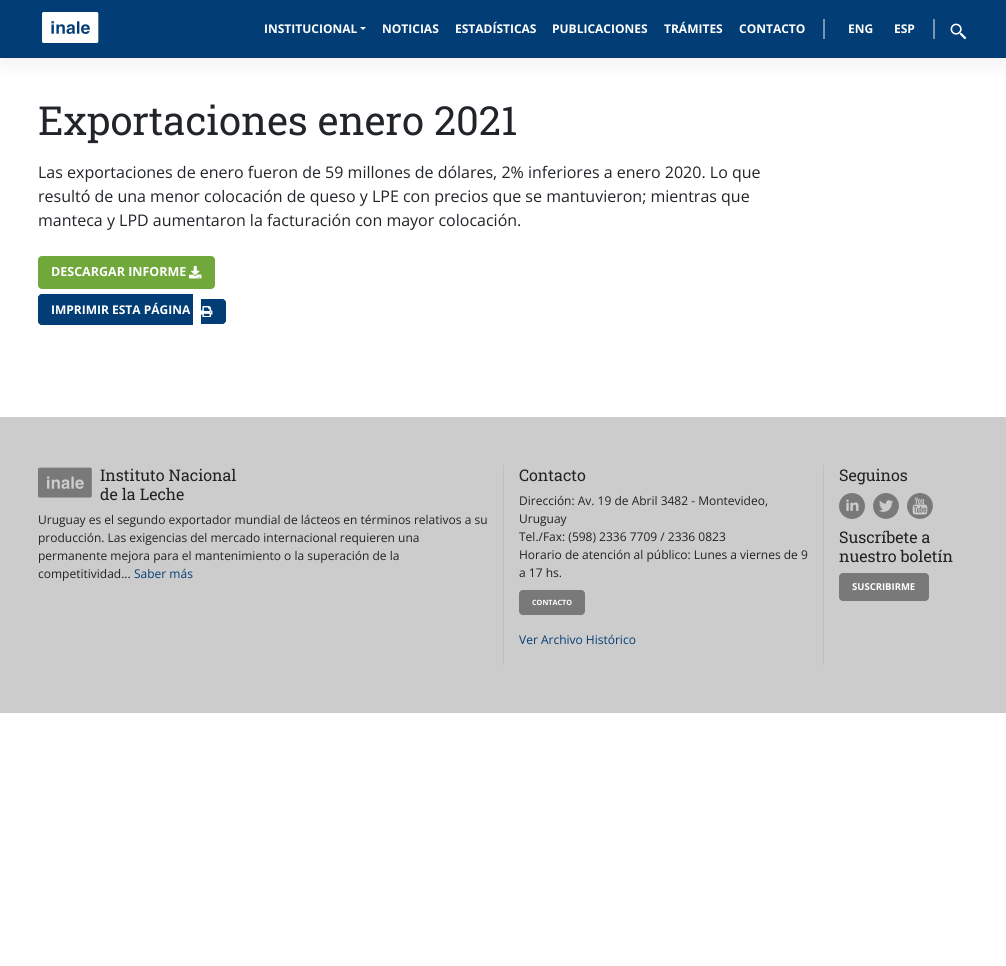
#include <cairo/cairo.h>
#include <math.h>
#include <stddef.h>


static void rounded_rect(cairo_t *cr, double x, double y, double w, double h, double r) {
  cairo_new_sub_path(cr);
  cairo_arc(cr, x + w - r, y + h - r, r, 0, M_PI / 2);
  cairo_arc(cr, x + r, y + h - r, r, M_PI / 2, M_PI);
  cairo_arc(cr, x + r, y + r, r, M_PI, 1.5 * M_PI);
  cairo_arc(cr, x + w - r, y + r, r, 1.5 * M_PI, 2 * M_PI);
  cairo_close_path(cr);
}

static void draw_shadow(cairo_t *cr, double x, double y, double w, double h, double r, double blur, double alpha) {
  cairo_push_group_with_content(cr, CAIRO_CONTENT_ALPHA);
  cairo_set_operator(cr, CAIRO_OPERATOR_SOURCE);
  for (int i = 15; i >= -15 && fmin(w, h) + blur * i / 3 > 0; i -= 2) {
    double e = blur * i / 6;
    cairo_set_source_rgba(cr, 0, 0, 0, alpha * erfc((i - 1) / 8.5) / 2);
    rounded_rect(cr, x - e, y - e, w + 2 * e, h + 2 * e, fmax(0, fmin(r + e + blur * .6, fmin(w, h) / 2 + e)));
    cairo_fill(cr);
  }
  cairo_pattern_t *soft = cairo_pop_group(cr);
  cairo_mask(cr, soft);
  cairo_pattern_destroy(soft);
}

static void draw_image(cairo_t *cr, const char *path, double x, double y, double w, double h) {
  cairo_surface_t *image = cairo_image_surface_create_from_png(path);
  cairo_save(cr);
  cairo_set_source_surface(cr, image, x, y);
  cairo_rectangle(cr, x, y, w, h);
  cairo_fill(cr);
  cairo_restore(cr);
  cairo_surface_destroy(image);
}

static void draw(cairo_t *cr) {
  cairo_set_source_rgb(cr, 1, 1, 1);
  cairo_paint(cr);
  cairo_set_source_rgb(cr, 0, 0, 0);
  draw_shadow(cr, 0, 8, 1006, 58, 0, 8, 0.05);
  cairo_set_source_rgb(cr, 3 / 255.0, 61 / 255.0, 117 / 255.0);
  cairo_rectangle(cr, 0, 0, 1006, 57);
  cairo_fill(cr);
  cairo_set_source_rgb(cr, 3 / 255.0, 55 / 255.0, 105 / 255.0);
  cairo_rectangle(cr, 0, 57, 1006, 1);
  cairo_fill(cr);
  draw_image(cr, "images/1.png", 42, 12, 57, 31);
  cairo_set_source_rgb(cr, 1, 1, 1);
  cairo_new_path(cr);
  cairo_move_to(cr, 360, 27);
  cairo_line_to(cr, 366, 27);
  cairo_line_to(cr, 363, 30);
  cairo_close_path(cr);
  cairo_fill(cr);
  cairo_set_source_rgb(cr, 119 / 255.0, 150 / 255.0, 180 / 255.0);
  cairo_rectangle(cr, 823, 19, 2, 20);
  cairo_fill(cr);
  cairo_rectangle(cr, 933, 19, 2, 20);
  cairo_fill(cr);
  draw_image(cr, "images/2.png", 950, 23, 17, 17);
  cairo_set_source_rgb(cr, 112 / 255.0, 168 / 255.0, 59 / 255.0);
  rounded_rect(cr, 38.5, 256.5, 176, 32, 3.5);
  cairo_fill_preserve(cr);
  cairo_set_line_width(cr, 1);
  cairo_stroke(cr);
  draw_image(cr, "images/3.png", 189, 266, 13, 13);
  cairo_set_source_rgb(cr, 3 / 255.0, 61 / 255.0, 117 / 255.0);
  cairo_new_path(cr);
  cairo_move_to(cr, 42, 294);
  cairo_line_to(cr, 193, 294);
  cairo_line_to(cr, 193, 325);
  cairo_line_to(cr, 42, 325);
  cairo_curve_to(cr, 40, 325, 38, 323, 38, 321);
  cairo_line_to(cr, 38, 298);
  cairo_curve_to(cr, 38, 296, 40, 294, 42, 294);
  cairo_close_path(cr);
  cairo_fill(cr);
  cairo_set_fill_rule(cr, CAIRO_FILL_RULE_EVEN_ODD);
  cairo_new_path(cr);
  cairo_move_to(cr, 42, 294);
  cairo_line_to(cr, 193, 294);
  cairo_line_to(cr, 193, 325);
  cairo_line_to(cr, 42, 325);
  cairo_curve_to(cr, 40, 325, 38, 323, 38, 321);
  cairo_line_to(cr, 38, 298);
  cairo_curve_to(cr, 38, 296, 40, 294, 42, 294);
  cairo_close_path(cr);
  cairo_move_to(cr, 42, 295);
  cairo_line_to(cr, 193, 295);
  cairo_line_to(cr, 193, 324);
  cairo_line_to(cr, 42, 324);
  cairo_curve_to(cr, 40, 324, 39, 323, 39, 321);
  cairo_line_to(cr, 39, 298);
  cairo_curve_to(cr, 39, 296, 40, 295, 42, 295);
  cairo_close_path(cr);
  cairo_fill(cr);
  cairo_new_path(cr);
  cairo_move_to(cr, 201, 299);
  cairo_line_to(cr, 222, 299);
  cairo_curve_to(cr, 224, 299, 226, 301, 226, 303);
  cairo_line_to(cr, 226, 320);
  cairo_curve_to(cr, 226, 322, 224, 324, 222, 324);
  cairo_line_to(cr, 201, 324);
  cairo_close_path(cr);
  cairo_fill(cr);
  cairo_new_path(cr);
  cairo_move_to(cr, 201, 299);
  cairo_line_to(cr, 222, 299);
  cairo_curve_to(cr, 224, 299, 226, 301, 226, 303);
  cairo_line_to(cr, 226, 320);
  cairo_curve_to(cr, 226, 322, 224, 324, 222, 324);
  cairo_line_to(cr, 201, 324);
  cairo_close_path(cr);
  cairo_move_to(cr, 201, 300);
  cairo_line_to(cr, 222, 300);
  cairo_curve_to(cr, 223.5, 300, 225, 301.5, 225, 303);
  cairo_line_to(cr, 225, 320);
  cairo_curve_to(cr, 225, 321.5, 223.5, 323, 222, 323);
  cairo_line_to(cr, 201, 323);
  cairo_close_path(cr);
  cairo_fill(cr);
  draw_image(cr, "images/4.png", 201, 306, 12, 11);
  cairo_set_source_rgb(cr, 204 / 255.0, 204 / 255.0, 204 / 255.0);
  cairo_rectangle(cr, 0, 417, 1006, 296);
  cairo_fill(cr);
  draw_image(cr, "images/5.png", 38, 467, 54, 31);
  cairo_set_source_rgb(cr, 190 / 255.0, 190 / 255.0, 190 / 255.0);
  cairo_rectangle(cr, 503, 465, 1, 200);
  cairo_fill(cr);
  cairo_set_source_rgb(cr, 121 / 255.0, 121 / 255.0, 121 / 255.0);
  rounded_rect(cr, 519.5, 590.5, 65, 24, 3.5);
  cairo_fill_preserve(cr);
  cairo_stroke(cr);
  cairo_set_source_rgb(cr, 190 / 255.0, 190 / 255.0, 190 / 255.0);
  cairo_rectangle(cr, 823, 465, 1, 200);
  cairo_fill(cr);
  draw_image(cr, "images/6.png", 839, 493, 26, 26);
  draw_image(cr, "images/7.png", 873, 493, 26, 26);
  draw_image(cr, "images/8.png", 907, 493, 26, 26);
  cairo_set_source_rgb(cr, 121 / 255.0, 121 / 255.0, 121 / 255.0);
  rounded_rect(cr, 839.5, 573.5, 89, 27, 3.5);
  cairo_fill_preserve(cr);
  cairo_stroke(cr);
  cairo_select_font_face(cr, "Open Sans", CAIRO_FONT_SLANT_NORMAL, CAIRO_FONT_WEIGHT_BOLD);
  cairo_set_font_size(cr, 12);
  cairo_set_source_rgb(cr, 1, 1, 1);
  cairo_move_to(cr, 264, 33);
  cairo_show_text(cr, "INSTITUCIONAL");
  cairo_move_to(cr, 382, 33);
  cairo_show_text(cr, "NOTICIAS");
  cairo_move_to(cr, 455, 33);
  cairo_show_text(cr, "ESTADÍSTICAS");
  cairo_move_to(cr, 552, 33);
  cairo_show_text(cr, "PUBLICACIONES");
  cairo_move_to(cr, 664, 33);
  cairo_show_text(cr, "TRÁMITES");
  cairo_move_to(cr, 739, 33);
  cairo_show_text(cr, "CONTACTO");
  cairo_move_to(cr, 848, 33);
  cairo_show_text(cr, "ENG");
  cairo_move_to(cr, 894, 33);
  cairo_show_text(cr, "ESP");
  cairo_select_font_face(cr, "Roboto Slab", CAIRO_FONT_SLANT_NORMAL, CAIRO_FONT_WEIGHT_NORMAL);
  cairo_set_font_size(cr, 40);
  cairo_set_source_rgb(cr, 33 / 255.0, 37 / 255.0, 41 / 255.0);
  cairo_move_to(cr, 38, 135);
  cairo_show_text(cr, "Exportaciones enero 2021");
  cairo_select_font_face(cr, "Open Sans", CAIRO_FONT_SLANT_NORMAL, CAIRO_FONT_WEIGHT_NORMAL);
  cairo_set_font_size(cr, 16);
  cairo_move_to(cr, 38, 178);
  cairo_show_text(cr, "Las exportaciones de enero fueron de 59 millones de dólares, 2% inferiores a enero 2020. Lo que");
  cairo_move_to(cr, 38, 202);
  cairo_show_text(cr, "resultó de una menor colocación de queso y LPE con precios que se mantuvieron; mientras que");
  cairo_move_to(cr, 38, 226);
  cairo_show_text(cr, "manteca y LPD aumentaron la facturación con mayor colocación.");
  cairo_select_font_face(cr, "Open Sans", CAIRO_FONT_SLANT_NORMAL, CAIRO_FONT_WEIGHT_BOLD);
  cairo_set_font_size(cr, 12.5);
  cairo_set_source_rgb(cr, 1, 1, 1);
  cairo_move_to(cr, 51, 276);
  cairo_show_text(cr, "DESCARGAR INFORME");
  cairo_set_font_size(cr, 12);
  cairo_move_to(cr, 51, 314);
  cairo_show_text(cr, "IMPRIMIR ESTA PÁGINA");
  cairo_select_font_face(cr, "Roboto Slab", CAIRO_FONT_SLANT_NORMAL, CAIRO_FONT_WEIGHT_NORMAL);
  cairo_set_font_size(cr, 16);
  cairo_set_source_rgb(cr, 34 / 255.0, 34 / 255.0, 34 / 255.0);
  cairo_move_to(cr, 100, 481);
  cairo_show_text(cr, "Instituto Nacional");
  cairo_move_to(cr, 100, 500);
  cairo_show_text(cr, "de la Leche");
  cairo_select_font_face(cr, "Open Sans", CAIRO_FONT_SLANT_NORMAL, CAIRO_FONT_WEIGHT_NORMAL);
  cairo_set_font_size(cr, 12);
  cairo_move_to(cr, 38, 524);
  cairo_show_text(cr, "Uruguay es el segundo exportador mundial de lácteos en términos relativos a su");
  cairo_move_to(cr, 38, 542);
  cairo_show_text(cr, "producción. Las exigencias del mercado internacional requieren una");
  cairo_move_to(cr, 38, 560);
  cairo_show_text(cr, "permanente mejora para el mantenimiento o la superación de la");
  cairo_move_to(cr, 38, 578);
  cairo_show_text(cr, "competitividad...");
  cairo_set_source_rgb(cr, 3 / 255.0, 61 / 255.0, 117 / 255.0);
  cairo_move_to(cr, 134, 578);
  cairo_show_text(cr, "Saber más");
  cairo_select_font_face(cr, "Roboto Slab", CAIRO_FONT_SLANT_NORMAL, CAIRO_FONT_WEIGHT_NORMAL);
  cairo_set_font_size(cr, 16);
  cairo_set_source_rgb(cr, 34 / 255.0, 34 / 255.0, 34 / 255.0);
  cairo_move_to(cr, 519, 481);
  cairo_show_text(cr, "Contacto");
  cairo_select_font_face(cr, "Open Sans", CAIRO_FONT_SLANT_NORMAL, CAIRO_FONT_WEIGHT_NORMAL);
  cairo_set_font_size(cr, 12);
  cairo_move_to(cr, 519, 505);
  cairo_show_text(cr, "Dirección: Av. 19 de Abril 3482 - Montevideo,");
  cairo_move_to(cr, 519, 523);
  cairo_show_text(cr, "Uruguay");
  cairo_move_to(cr, 519, 541);
  cairo_show_text(cr, "Tel./Fax: (598) 2336 7709 / 2336 0823");
  cairo_move_to(cr, 519, 559);
  cairo_show_text(cr, "Horario de atención al público: Lunes a viernes de 9");
  cairo_move_to(cr, 519, 577);
  cairo_show_text(cr, "a 17 hs.");
  cairo_select_font_face(cr, "Open Sans", CAIRO_FONT_SLANT_NORMAL, CAIRO_FONT_WEIGHT_BOLD);
  cairo_set_font_size(cr, 7.25);
  cairo_set_source_rgb(cr, 1, 1, 1);
  cairo_move_to(cr, 532, 605);
  cairo_show_text(cr, "CONTACTO");
  cairo_select_font_face(cr, "Open Sans", CAIRO_FONT_SLANT_NORMAL, CAIRO_FONT_WEIGHT_NORMAL);
  cairo_set_font_size(cr, 12);
  cairo_set_source_rgb(cr, 3 / 255.0, 61 / 255.0, 117 / 255.0);
  cairo_move_to(cr, 519, 644);
  cairo_show_text(cr, "Ver Archivo Histórico");
  cairo_select_font_face(cr, "Roboto Slab", CAIRO_FONT_SLANT_NORMAL, CAIRO_FONT_WEIGHT_NORMAL);
  cairo_set_font_size(cr, 16);
  cairo_set_source_rgb(cr, 34 / 255.0, 34 / 255.0, 34 / 255.0);
  cairo_move_to(cr, 839, 481);
  cairo_show_text(cr, "Seguinos");
  cairo_move_to(cr, 839, 543);
  cairo_show_text(cr, "Suscríbete a");
  cairo_move_to(cr, 839, 562);
  cairo_show_text(cr, "nuestro boletín");
  cairo_select_font_face(cr, "Open Sans", CAIRO_FONT_SLANT_NORMAL, CAIRO_FONT_WEIGHT_BOLD);
  cairo_set_font_size(cr, 9.5);
  cairo_set_source_rgb(cr, 1, 1, 1);
  cairo_move_to(cr, 852, 590);
  cairo_show_text(cr, "SUSCRIBIRME");
}

int main(void) {
  cairo_surface_t *surface = cairo_image_surface_create(CAIRO_FORMAT_RGB24, 1006, 966);
  cairo_t *cr = cairo_create(surface);
  cairo_font_options_t *options = cairo_font_options_create();
  cairo_font_options_set_hint_metrics(options, CAIRO_HINT_METRICS_OFF);
  cairo_font_options_set_hint_style(options, CAIRO_HINT_STYLE_NONE);
  cairo_set_font_options(cr, options);
  cairo_set_miter_limit(cr, 4);
  draw(cr);
  cairo_surface_write_to_png(surface, "out.png");
  cairo_font_options_destroy(options);
  cairo_destroy(cr);
  cairo_surface_destroy(surface);
  return 0;
}
